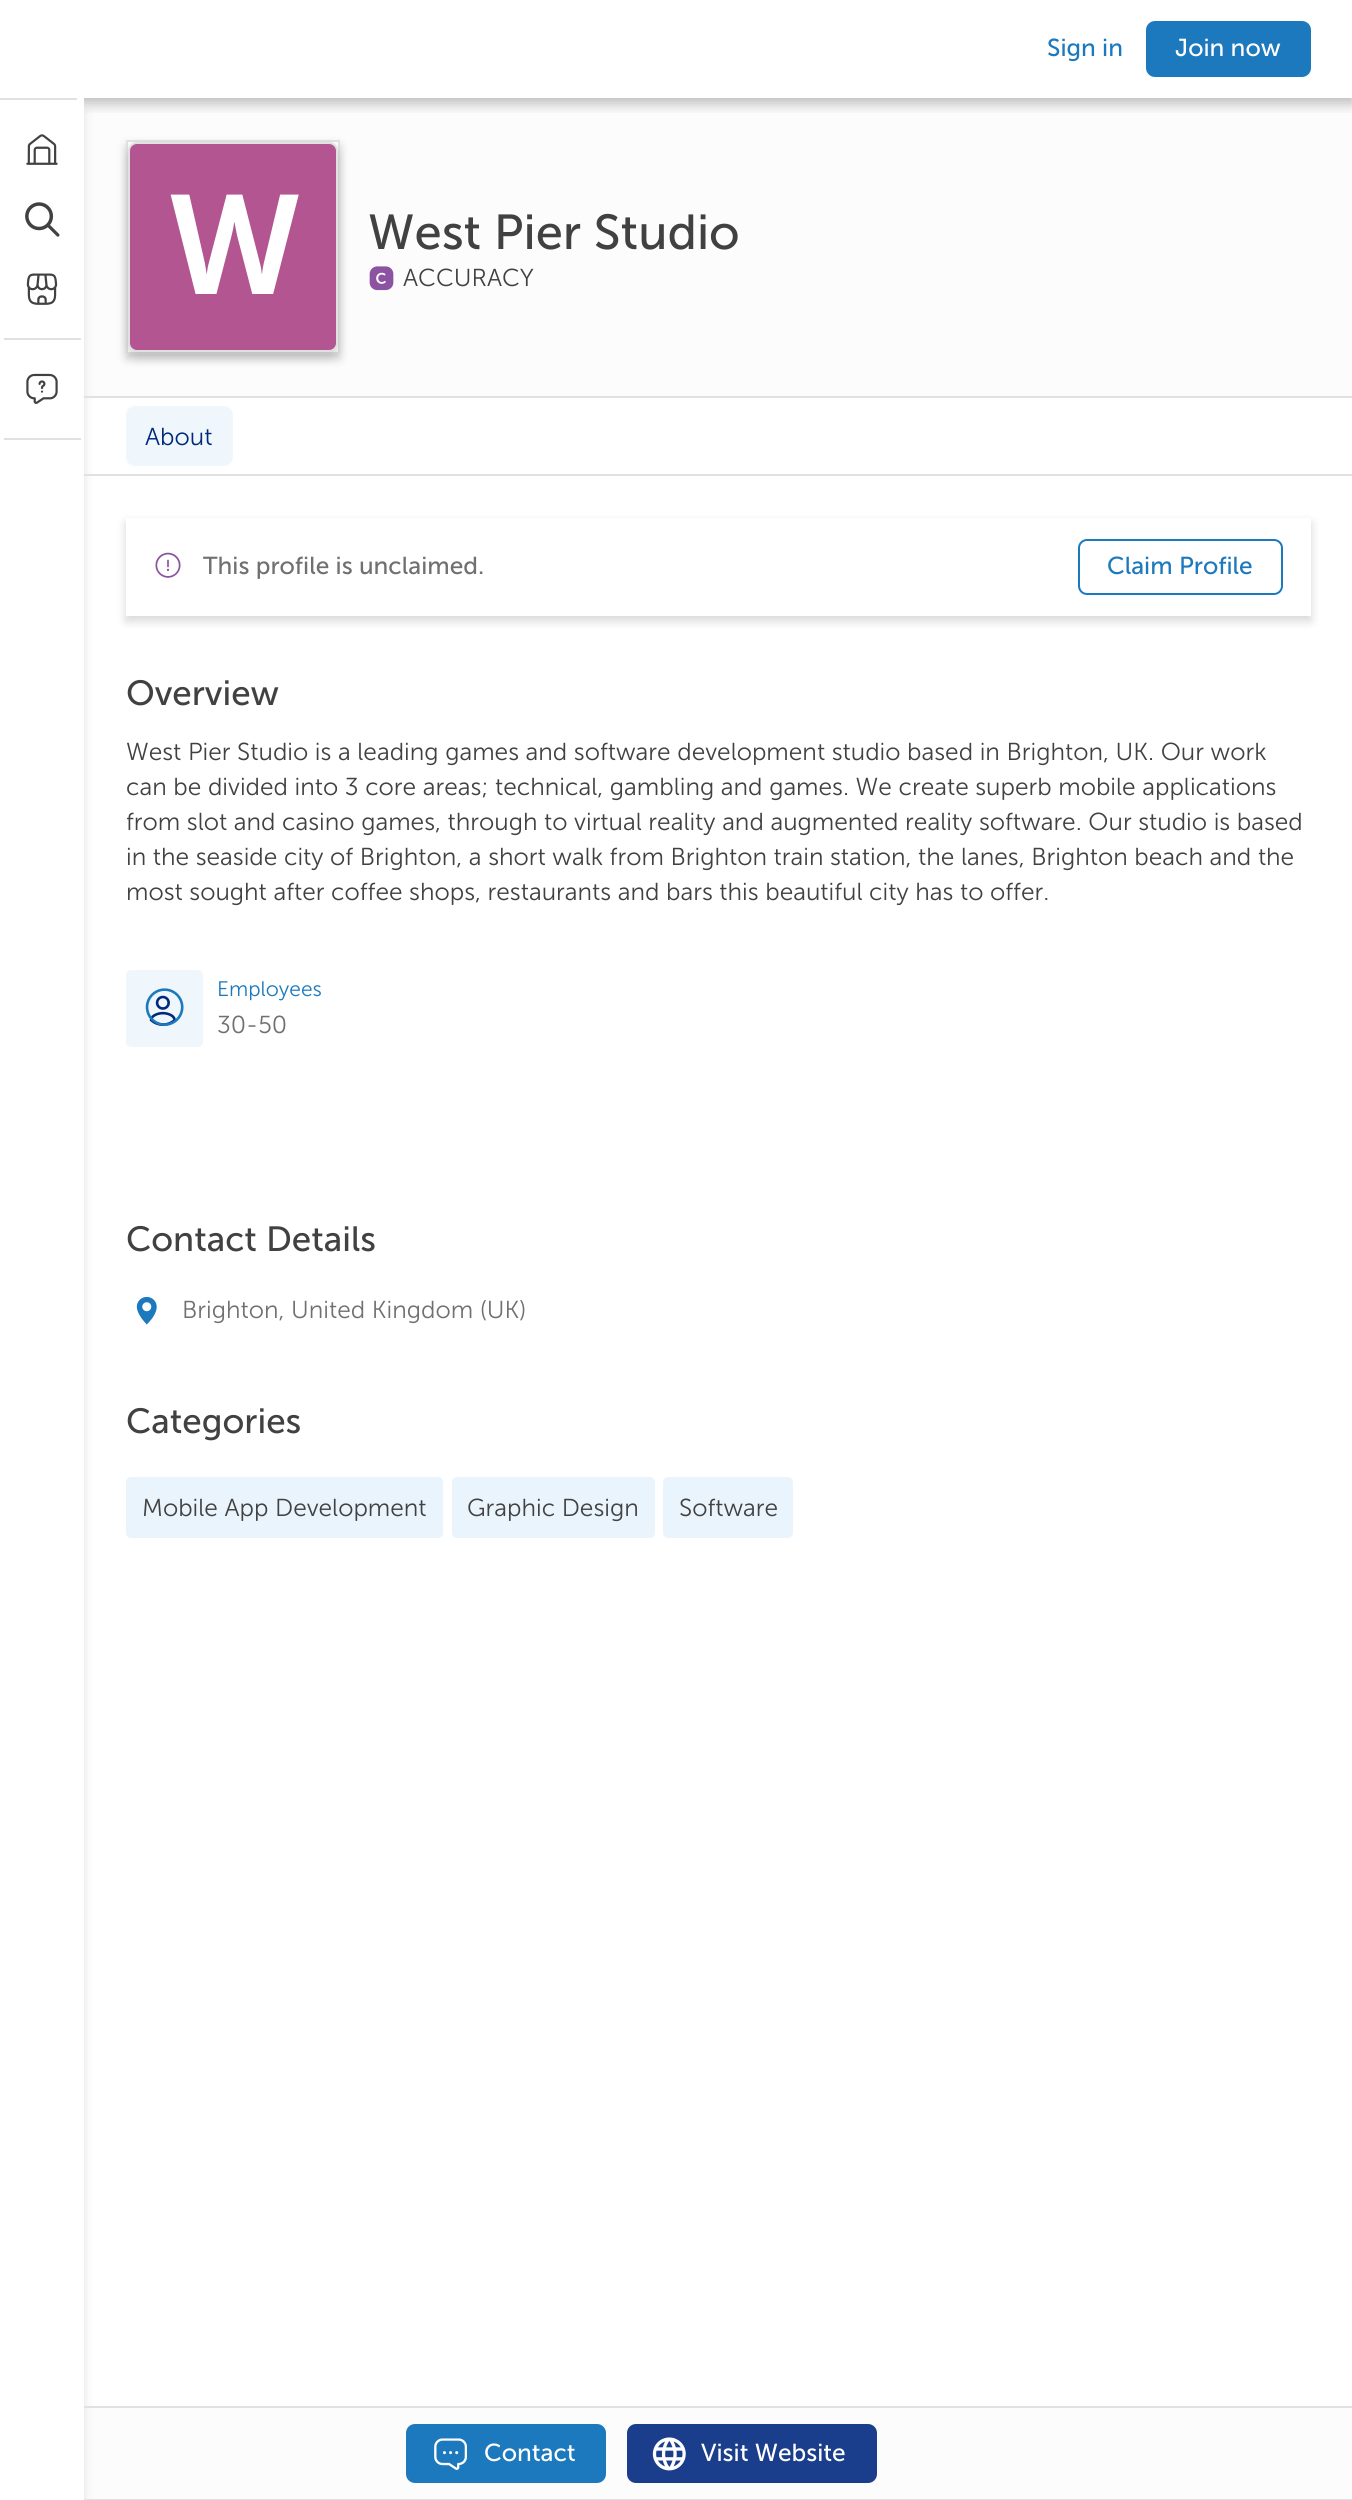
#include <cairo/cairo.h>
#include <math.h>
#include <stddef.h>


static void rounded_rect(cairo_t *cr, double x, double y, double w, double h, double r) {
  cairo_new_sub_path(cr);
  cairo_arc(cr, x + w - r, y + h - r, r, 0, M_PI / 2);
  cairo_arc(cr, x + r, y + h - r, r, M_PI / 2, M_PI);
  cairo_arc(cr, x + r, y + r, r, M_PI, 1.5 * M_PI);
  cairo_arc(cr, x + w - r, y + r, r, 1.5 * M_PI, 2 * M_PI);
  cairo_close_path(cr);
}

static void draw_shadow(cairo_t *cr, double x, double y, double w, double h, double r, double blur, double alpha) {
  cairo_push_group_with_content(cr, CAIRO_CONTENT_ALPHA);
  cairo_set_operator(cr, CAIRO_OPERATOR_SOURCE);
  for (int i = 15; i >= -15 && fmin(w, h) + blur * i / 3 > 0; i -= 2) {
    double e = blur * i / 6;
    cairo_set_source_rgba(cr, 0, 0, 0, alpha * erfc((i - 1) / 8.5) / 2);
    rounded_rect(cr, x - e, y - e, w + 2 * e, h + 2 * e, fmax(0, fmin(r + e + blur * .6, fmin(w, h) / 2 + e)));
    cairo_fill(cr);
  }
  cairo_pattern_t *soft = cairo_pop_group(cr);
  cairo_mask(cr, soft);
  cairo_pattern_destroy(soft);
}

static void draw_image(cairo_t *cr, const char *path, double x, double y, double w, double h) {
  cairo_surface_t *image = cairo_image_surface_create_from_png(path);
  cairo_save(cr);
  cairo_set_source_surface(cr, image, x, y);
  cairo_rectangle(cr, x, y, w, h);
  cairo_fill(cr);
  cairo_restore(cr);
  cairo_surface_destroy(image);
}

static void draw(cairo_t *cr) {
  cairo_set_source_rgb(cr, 1, 1, 1);
  cairo_paint(cr);
  cairo_set_source_rgb(cr, 252 / 255.0, 252 / 255.0, 252 / 255.0);
  cairo_rectangle(cr, 84, 98, 1268, 298);
  cairo_fill(cr);
  cairo_save(cr);
  cairo_rectangle(cr, 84, 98, 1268, 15);
  cairo_clip(cr);
  cairo_set_source_rgb(cr, 0, 0, 0);
  draw_shadow(cr, 0, 5, 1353, 98, 0, 7, 0.28);
  cairo_restore(cr);
  cairo_set_source_rgb(cr, 29 / 255.0, 121 / 255.0, 190 / 255.0);
  rounded_rect(cr, 1147, 22, 163, 54, 8);
  cairo_fill_preserve(cr);
  cairo_stroke(cr);
  cairo_set_source_rgb(cr, 225 / 255.0, 225 / 255.0, 225 / 255.0);
  cairo_rectangle(cr, 84, 396, 1268, 2);
  cairo_fill(cr);
  cairo_rectangle(cr, 84, 474, 1268, 2);
  cairo_fill(cr);
  cairo_set_source_rgb(cr, 252 / 255.0, 252 / 255.0, 252 / 255.0);
  cairo_rectangle(cr, 84, 2408, 1268, 91);
  cairo_fill(cr);
  cairo_set_source_rgb(cr, 225 / 255.0, 225 / 255.0, 225 / 255.0);
  cairo_rectangle(cr, 84, 2406, 1268, 2);
  cairo_fill(cr);
  cairo_rectangle(cr, 84, 2499, 1268, 1);
  cairo_fill(cr);
  cairo_set_source_rgb(cr, 225 / 255.0, 225 / 255.0, 225 / 255.0);
  draw_shadow(cr, 0, 109, 84, 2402, 0, 5, 1);
  cairo_set_source_rgb(cr, 1, 1, 1);
  cairo_rectangle(cr, 0, 98, 84, 2402);
  cairo_fill(cr);
  cairo_set_source_rgb(cr, 225 / 255.0, 225 / 255.0, 225 / 255.0);
  cairo_rectangle(cr, 0, 98, 77, 2);
  cairo_fill(cr);
  draw_image(cr, "images/1.png", 26, 134, 32, 31);
  draw_image(cr, "images/2.png", 25, 202, 35, 35);
  draw_image(cr, "images/3.png", 26, 273, 32, 32);
  cairo_rectangle(cr, 4, 338, 77, 2);
  cairo_fill(cr);
  draw_image(cr, "images/4.png", 26, 373, 32, 31);
  cairo_rectangle(cr, 4, 438, 77, 2);
  cairo_fill(cr);
  cairo_save(cr);
  cairo_set_fill_rule(cr, CAIRO_FILL_RULE_EVEN_ODD);
  cairo_new_path(cr);
  cairo_move_to(cr, 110, 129);
  cairo_line_to(cr, 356, 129);
  cairo_line_to(cr, 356, 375);
  cairo_line_to(cr, 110, 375);
  cairo_close_path(cr);
  cairo_move_to(cr, 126, 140);
  cairo_line_to(cr, 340, 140);
  cairo_line_to(cr, 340, 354);
  cairo_line_to(cr, 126, 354);
  cairo_close_path(cr);
  cairo_clip(cr);
  cairo_set_source_rgb(cr, 0, 0, 0);
  draw_shadow(cr, 126, 145, 214, 214, 0, 5, 0.16);
  cairo_restore(cr);
  cairo_rectangle(cr, 127, 141, 212, 212);
  cairo_stroke(cr);
  cairo_set_source_rgb(cr, 0, 0, 0);
  draw_shadow(cr, 128, 147, 210, 210, 9, 5, 0.16);
  cairo_set_source_rgb(cr, 179 / 255.0, 85 / 255.0, 145 / 255.0);
  rounded_rect(cr, 129, 143, 208, 208, 8);
  cairo_fill_preserve(cr);
  cairo_set_source_rgb(cr, 225 / 255.0, 225 / 255.0, 225 / 255.0);
  cairo_stroke(cr);
  draw_image(cr, "images/5.png", 369, 266, 25, 25);
  draw_image(cr, "images/6.png", 376, 272, 10, 12);
  cairo_set_source_rgb(cr, 240 / 255.0, 247 / 255.0, 252 / 255.0);
  rounded_rect(cr, 126, 406, 107, 60, 9);
  cairo_fill(cr);
  cairo_set_source_rgb(cr, 29 / 255.0, 121 / 255.0, 190 / 255.0);
  rounded_rect(cr, 407, 2425, 198, 57, 8);
  cairo_fill_preserve(cr);
  cairo_stroke(cr);
  draw_image(cr, "images/7.png", 434, 2438, 33, 32);
  cairo_set_source_rgb(cr, 26 / 255.0, 62 / 255.0, 139 / 255.0);
  rounded_rect(cr, 628, 2425, 248, 57, 8);
  cairo_fill_preserve(cr);
  cairo_stroke(cr);
  draw_image(cr, "images/8.png", 652, 2437, 34, 34);
  cairo_save(cr);
  cairo_set_fill_rule(cr, CAIRO_FILL_RULE_EVEN_ODD);
  cairo_new_path(cr);
  cairo_move_to(cr, 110, 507);
  cairo_line_to(cr, 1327, 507);
  cairo_line_to(cr, 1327, 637);
  cairo_line_to(cr, 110, 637);
  cairo_close_path(cr);
  cairo_move_to(cr, 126, 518);
  cairo_line_to(cr, 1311, 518);
  cairo_line_to(cr, 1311, 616);
  cairo_line_to(cr, 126, 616);
  cairo_close_path(cr);
  cairo_clip(cr);
  cairo_set_source_rgb(cr, 0, 0, 0);
  draw_shadow(cr, 126, 523, 1185, 98, 0, 5, 0.16);
  cairo_restore(cr);
  draw_image(cr, "images/9.png", 155, 552, 26, 26);
  rounded_rect(cr, 1079, 540, 203, 54, 8);
  cairo_set_source_rgb(cr, 29 / 255.0, 121 / 255.0, 190 / 255.0);
  cairo_stroke(cr);
  cairo_set_source_rgb(cr, 240 / 255.0, 247 / 255.0, 252 / 255.0);
  rounded_rect(cr, 126, 970, 77, 77, 5);
  cairo_fill(cr);
  draw_image(cr, "images/11.png", 149, 995, 27, 31);
  draw_image(cr, "images/10.png", 145, 988, 39, 38);
  draw_image(cr, "images/12.png", 136, 1296, 21, 29);
  cairo_set_source_rgb(cr, 233 / 255.0, 244 / 255.0, 252 / 255.0);
  rounded_rect(cr, 127, 1478, 315, 59, 4);
  cairo_fill_preserve(cr);
  cairo_stroke(cr);
  rounded_rect(cr, 453, 1478, 201, 59, 4);
  cairo_fill_preserve(cr);
  cairo_stroke(cr);
  rounded_rect(cr, 664, 1478, 128, 59, 4);
  cairo_fill_preserve(cr);
  cairo_stroke(cr);
  cairo_select_font_face(cr, "Museo Sans", CAIRO_FONT_SLANT_NORMAL, CAIRO_FONT_WEIGHT_NORMAL);
  cairo_set_font_size(cr, 24.5);
  cairo_set_source_rgb(cr, 29 / 255.0, 121 / 255.0, 190 / 255.0);
  cairo_move_to(cr, 1047, 56);
  cairo_show_text(cr, "Sign in");
  cairo_set_source_rgb(cr, 1, 1, 1);
  cairo_move_to(cr, 1175, 56);
  cairo_show_text(cr, "Join now");
  cairo_select_font_face(cr, "Museo Sans SemiBold", CAIRO_FONT_SLANT_NORMAL, CAIRO_FONT_WEIGHT_NORMAL);
  cairo_set_font_size(cr, 140);
  cairo_move_to(cr, 167, 294);
  cairo_show_text(cr, "W");
  cairo_select_font_face(cr, "Museo Sans", CAIRO_FONT_SLANT_NORMAL, CAIRO_FONT_WEIGHT_NORMAL);
  cairo_set_font_size(cr, 49);
  cairo_set_source_rgb(cr, 65 / 255.0, 65 / 255.0, 65 / 255.0);
  cairo_move_to(cr, 368, 249);
  cairo_show_text(cr, "West Pier Studio");
  cairo_select_font_face(cr, "Museo Sans Light", CAIRO_FONT_SLANT_NORMAL, CAIRO_FONT_WEIGHT_NORMAL);
  cairo_set_font_size(cr, 24.5);
  cairo_move_to(cr, 403, 286);
  cairo_show_text(cr, "ACCURACY");
  cairo_set_source_rgb(cr, 0, 41 / 255.0, 126 / 255.0);
  cairo_move_to(cr, 145, 445);
  cairo_show_text(cr, "About");
  cairo_select_font_face(cr, "Museo Sans", CAIRO_FONT_SLANT_NORMAL, CAIRO_FONT_WEIGHT_NORMAL);
  cairo_set_source_rgb(cr, 1, 1, 1);
  cairo_move_to(cr, 484, 2461);
  cairo_show_text(cr, "Contact");
  cairo_move_to(cr, 701, 2461);
  cairo_show_text(cr, "Visit Website");
  cairo_set_source_rgb(cr, 112 / 255.0, 112 / 255.0, 112 / 255.0);
  cairo_move_to(cr, 203, 574);
  cairo_show_text(cr, "This profile is unclaimed.");
  cairo_set_source_rgb(cr, 29 / 255.0, 121 / 255.0, 190 / 255.0);
  cairo_move_to(cr, 1107, 574);
  cairo_show_text(cr, "Claim Profile");
  cairo_set_font_size(cr, 35);
  cairo_set_source_rgb(cr, 65 / 255.0, 65 / 255.0, 65 / 255.0);
  cairo_move_to(cr, 126, 705);
  cairo_show_text(cr, "Overview");
  cairo_select_font_face(cr, "Museo Sans Light", CAIRO_FONT_SLANT_NORMAL, CAIRO_FONT_WEIGHT_NORMAL);
  cairo_set_font_size(cr, 24.5);
  cairo_move_to(cr, 126, 760);
  cairo_show_text(cr, "West Pier Studio is a leading games and software development studio based in Brighton, UK. Our work");
  cairo_move_to(cr, 126, 795);
  cairo_show_text(cr, "can be divided into 3 core areas; technical, gambling and games. We create superb mobile applications");
  cairo_move_to(cr, 126, 830);
  cairo_show_text(cr, "from slot and casino games, through to virtual reality and augmented reality software. Our studio is based");
  cairo_move_to(cr, 126, 865);
  cairo_show_text(cr, "in the seaside city of Brighton, a short walk from Brighton train station, the lanes, Brighton beach and the");
  cairo_move_to(cr, 126, 900);
  cairo_show_text(cr, "most sought after coffee shops, restaurants and bars this beautiful city has to offer.");
  cairo_set_font_size(cr, 21);
  cairo_set_source_rgb(cr, 29 / 255.0, 121 / 255.0, 190 / 255.0);
  cairo_move_to(cr, 217, 996);
  cairo_show_text(cr, "Employees");
  cairo_set_font_size(cr, 24.5);
  cairo_set_source_rgb(cr, 112 / 255.0, 112 / 255.0, 112 / 255.0);
  cairo_move_to(cr, 217, 1033);
  cairo_show_text(cr, "30-50");
  cairo_select_font_face(cr, "Museo Sans", CAIRO_FONT_SLANT_NORMAL, CAIRO_FONT_WEIGHT_NORMAL);
  cairo_set_font_size(cr, 35);
  cairo_set_source_rgb(cr, 65 / 255.0, 65 / 255.0, 65 / 255.0);
  cairo_move_to(cr, 126, 1251);
  cairo_show_text(cr, "Contact Details");
  cairo_select_font_face(cr, "Museo Sans Light", CAIRO_FONT_SLANT_NORMAL, CAIRO_FONT_WEIGHT_NORMAL);
  cairo_set_font_size(cr, 24.5);
  cairo_set_source_rgb(cr, 112 / 255.0, 112 / 255.0, 112 / 255.0);
  cairo_move_to(cr, 182, 1318);
  cairo_show_text(cr, "Brighton, United Kingdom (UK)");
  cairo_select_font_face(cr, "Museo Sans", CAIRO_FONT_SLANT_NORMAL, CAIRO_FONT_WEIGHT_NORMAL);
  cairo_set_font_size(cr, 35);
  cairo_set_source_rgb(cr, 65 / 255.0, 65 / 255.0, 65 / 255.0);
  cairo_move_to(cr, 126, 1433);
  cairo_show_text(cr, "Categories");
  cairo_select_font_face(cr, "Museo Sans Light", CAIRO_FONT_SLANT_NORMAL, CAIRO_FONT_WEIGHT_NORMAL);
  cairo_set_font_size(cr, 24.5);
  cairo_move_to(cr, 142, 1516);
  cairo_show_text(cr, "Mobile App Development");
  cairo_move_to(cr, 467, 1516);
  cairo_show_text(cr, "Graphic Design");
  cairo_move_to(cr, 679, 1516);
  cairo_show_text(cr, "Software");
}

int main(void) {
  cairo_surface_t *surface = cairo_image_surface_create(CAIRO_FORMAT_RGB24, 1352, 2500);
  cairo_t *cr = cairo_create(surface);
  cairo_font_options_t *options = cairo_font_options_create();
  cairo_font_options_set_hint_metrics(options, CAIRO_HINT_METRICS_OFF);
  cairo_font_options_set_hint_style(options, CAIRO_HINT_STYLE_NONE);
  cairo_set_font_options(cr, options);
  cairo_set_miter_limit(cr, 4);
  draw(cr);
  cairo_surface_write_to_png(surface, "out.png");
  cairo_font_options_destroy(options);
  cairo_destroy(cr);
  cairo_surface_destroy(surface);
  return 0;
}
